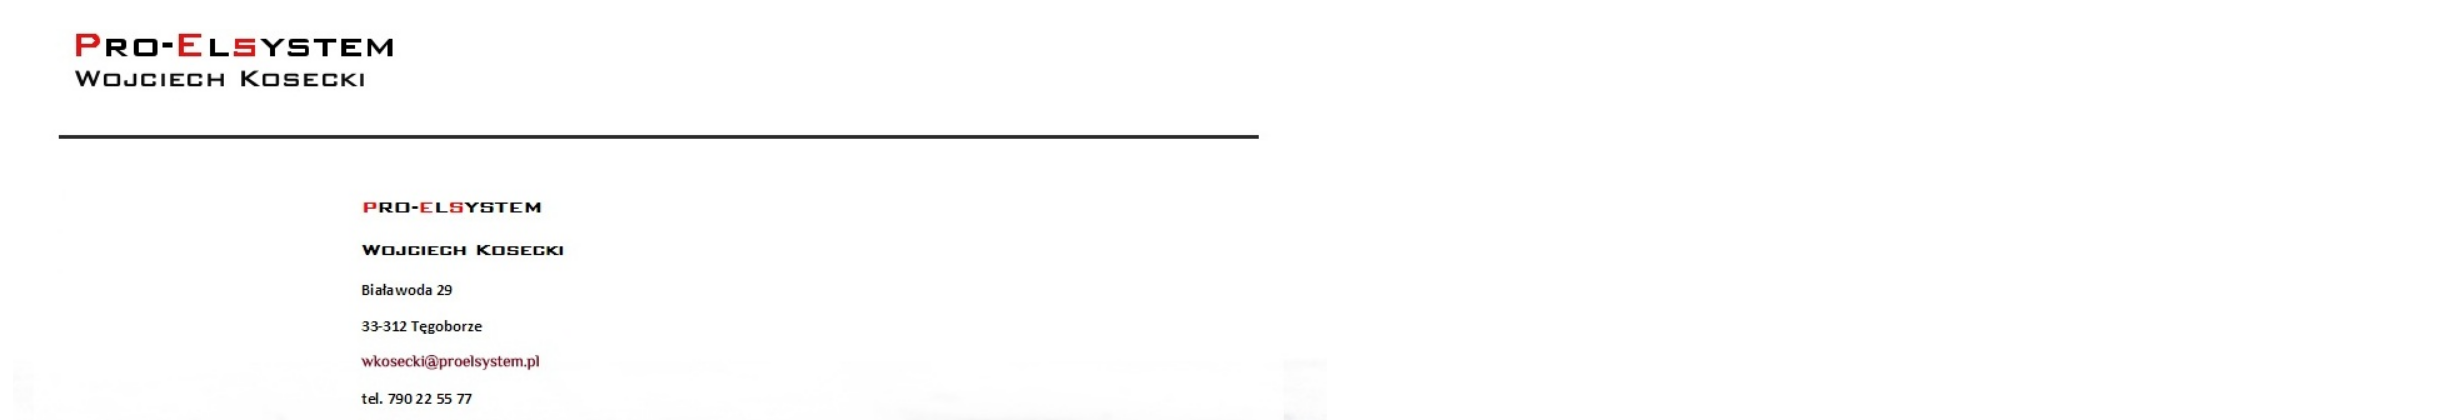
#include <cairo/cairo.h>
#include <math.h>
#include <stddef.h>


static void draw_image(cairo_t *cr, const char *path, double x, double y, double w, double h) {
  cairo_surface_t *image = cairo_image_surface_create_from_png(path);
  cairo_save(cr);
  cairo_set_source_surface(cr, image, x, y);
  cairo_rectangle(cr, x, y, w, h);
  cairo_fill(cr);
  cairo_restore(cr);
  cairo_surface_destroy(image);
}

static void draw(cairo_t *cr) {
  cairo_set_source_rgb(cr, 1, 1, 1);
  cairo_paint(cr);
  draw_image(cr, "images/1.png", 13, 29, 1314, 391);
}

int main(void) {
  cairo_surface_t *surface = cairo_image_surface_create(CAIRO_FORMAT_RGB24, 2444, 420);
  cairo_t *cr = cairo_create(surface);
  cairo_font_options_t *options = cairo_font_options_create();
  cairo_font_options_set_hint_metrics(options, CAIRO_HINT_METRICS_OFF);
  cairo_font_options_set_hint_style(options, CAIRO_HINT_STYLE_NONE);
  cairo_set_font_options(cr, options);
  cairo_set_miter_limit(cr, 4);
  draw(cr);
  cairo_surface_write_to_png(surface, "out.png");
  cairo_font_options_destroy(options);
  cairo_destroy(cr);
  cairo_surface_destroy(surface);
  return 0;
}
